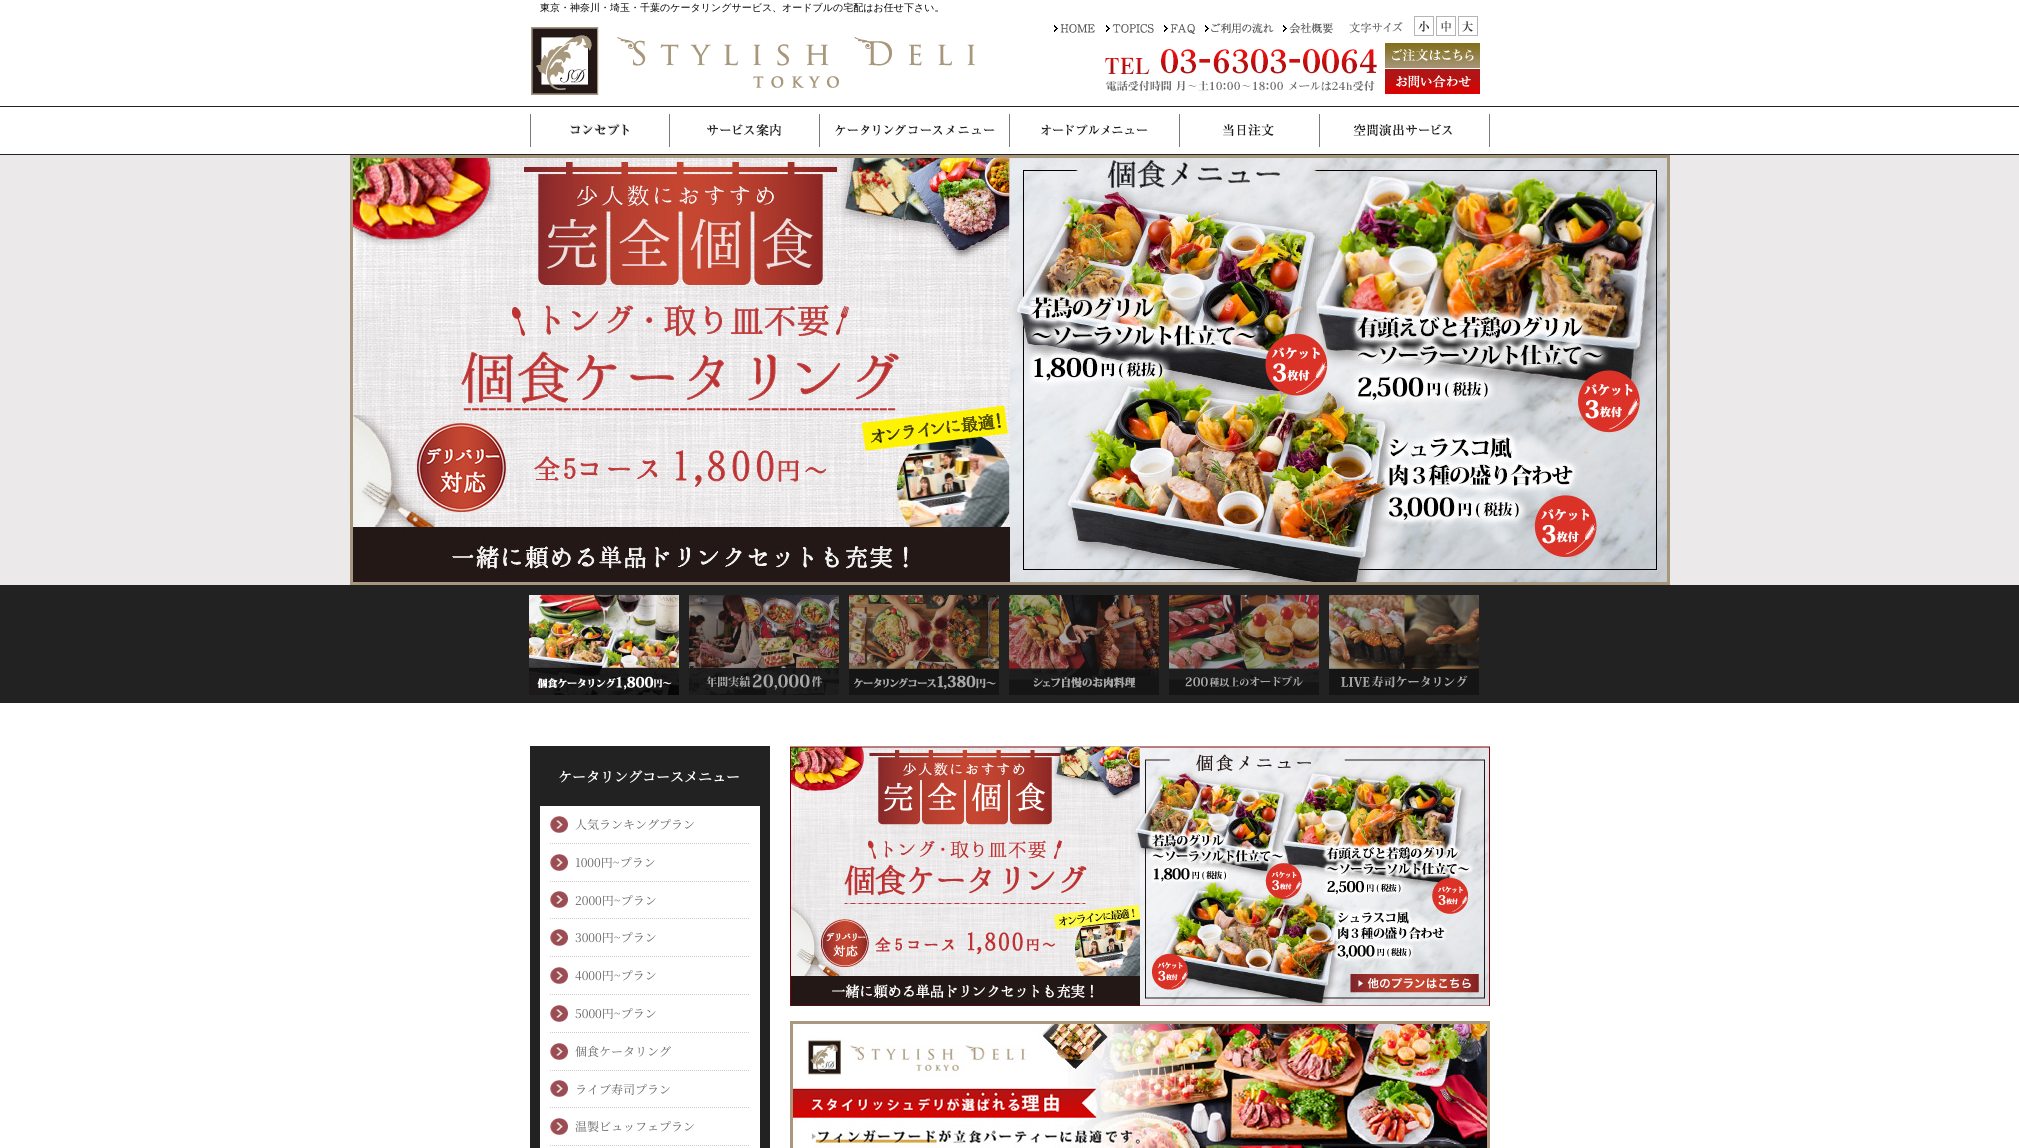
#include <cairo/cairo.h>
#include <math.h>
#include <stddef.h>


static void draw_image(cairo_t *cr, const char *path, double x, double y, double w, double h) {
  cairo_surface_t *image = cairo_image_surface_create_from_png(path);
  cairo_save(cr);
  cairo_set_source_surface(cr, image, x, y);
  cairo_rectangle(cr, x, y, w, h);
  cairo_fill(cr);
  cairo_restore(cr);
  cairo_surface_destroy(image);
}

static void draw(cairo_t *cr) {
  cairo_set_source_rgb(cr, 1, 1, 1);
  cairo_paint(cr);
  draw_image(cr, "images/1.png", 531, 27, 444, 68);
  draw_image(cr, "images/2.png", 1054, 24, 41, 9);
  draw_image(cr, "images/3.png", 1106, 24, 48, 9);
  draw_image(cr, "images/4.png", 1164, 24, 31, 10);
  draw_image(cr, "images/5.png", 1205, 23, 69, 11);
  draw_image(cr, "images/6.png", 1283, 23, 50, 11);
  draw_image(cr, "images/7.png", 1349, 22, 54, 11);
  draw_image(cr, "images/8.png", 1414, 16, 20, 20);
  draw_image(cr, "images/9.png", 1436, 16, 20, 20);
  draw_image(cr, "images/10.png", 1458, 16, 20, 20);
  draw_image(cr, "images/11.png", 1105, 49, 272, 42);
  draw_image(cr, "images/12.png", 1385, 43, 95, 25);
  draw_image(cr, "images/13.png", 1385, 69, 95, 25);
  cairo_set_source_rgb(cr, 34 / 255.0, 34 / 255.0, 34 / 255.0);
  cairo_rectangle(cr, 0, 106, 2019, 1);
  cairo_fill(cr);
  cairo_rectangle(cr, 0, 154, 2019, 1);
  cairo_fill(cr);
  draw_image(cr, "images/14.png", 530, 114, 140, 33);
  draw_image(cr, "images/15.png", 707, 114, 113, 33);
  draw_image(cr, "images/16.png", 835, 114, 175, 33);
  draw_image(cr, "images/17.png", 1041, 114, 139, 33);
  draw_image(cr, "images/18.png", 1223, 114, 97, 33);
  draw_image(cr, "images/19.png", 1353, 114, 137, 33);
  draw_image(cr, "images/20.png", 0, 155, 2019, 548);
  draw_image(cr, "images/21.png", 350, 155, 1320, 430);
  draw_image(cr, "images/22.png", 529, 595, 150, 100);
  draw_image(cr, "images/23.png", 689, 595, 150, 100);
  draw_image(cr, "images/24.png", 849, 595, 150, 100);
  draw_image(cr, "images/25.png", 1009, 595, 150, 100);
  draw_image(cr, "images/26.png", 1169, 595, 150, 100);
  draw_image(cr, "images/27.png", 1329, 595, 150, 100);
  cairo_rectangle(cr, 530, 746, 240, 402);
  cairo_fill(cr);
  cairo_set_source_rgb(cr, 1, 1, 1);
  cairo_rectangle(cr, 540, 806, 220, 342);
  cairo_fill(cr);
  cairo_new_path(cr);
  cairo_move_to(cr, 550, 843.5);
  cairo_line_to(cr, 750, 843.5);
  cairo_set_source_rgb(cr, 204 / 255.0, 204 / 255.0, 204 / 255.0);
  cairo_set_line_width(cr, 1);
  cairo_set_dash(cr, (double[]){1, 1}, 2, 0);
  cairo_stroke(cr);
  draw_image(cr, "images/28.png", 550, 816, 18, 17);
  cairo_new_path(cr);
  cairo_move_to(cr, 550, 881.5);
  cairo_line_to(cr, 750, 881.5);
  cairo_stroke(cr);
  draw_image(cr, "images/28.png", 550, 854, 18, 17);
  cairo_new_path(cr);
  cairo_move_to(cr, 550, 918.5);
  cairo_line_to(cr, 750, 918.5);
  cairo_stroke(cr);
  draw_image(cr, "images/28.png", 550, 891, 18, 17);
  cairo_new_path(cr);
  cairo_move_to(cr, 550, 956.5);
  cairo_line_to(cr, 750, 956.5);
  cairo_stroke(cr);
  draw_image(cr, "images/28.png", 550, 929, 18, 17);
  cairo_new_path(cr);
  cairo_move_to(cr, 550, 994.5);
  cairo_line_to(cr, 750, 994.5);
  cairo_stroke(cr);
  draw_image(cr, "images/28.png", 550, 967, 18, 17);
  cairo_new_path(cr);
  cairo_move_to(cr, 550, 1032.5);
  cairo_line_to(cr, 750, 1032.5);
  cairo_stroke(cr);
  draw_image(cr, "images/28.png", 550, 1005, 18, 17);
  cairo_new_path(cr);
  cairo_move_to(cr, 550, 1070.5);
  cairo_line_to(cr, 750, 1070.5);
  cairo_stroke(cr);
  draw_image(cr, "images/28.png", 550, 1043, 18, 17);
  cairo_new_path(cr);
  cairo_move_to(cr, 550, 1107.5);
  cairo_line_to(cr, 750, 1107.5);
  cairo_stroke(cr);
  draw_image(cr, "images/28.png", 550, 1080, 18, 17);
  cairo_new_path(cr);
  cairo_move_to(cr, 550, 1145.5);
  cairo_line_to(cr, 750, 1145.5);
  cairo_stroke(cr);
  draw_image(cr, "images/28.png", 550, 1118, 18, 17);
  draw_image(cr, "images/29.png", 790, 746, 700, 260);
  draw_image(cr, "images/30.png", 790, 1021, 700, 127);
  cairo_select_font_face(cr, "WenQuanYi Zen Hei Medium", CAIRO_FONT_SLANT_NORMAL, CAIRO_FONT_WEIGHT_NORMAL);
  cairo_set_font_size(cr, 10);
  cairo_set_source_rgb(cr, 0, 0, 0);
  cairo_move_to(cr, 540, 11);
  cairo_show_text(cr, "東京・神奈川・埼玉・千葉のケータリングサービス、オードブルの宅配はお任せ下さい。");
  cairo_select_font_face(cr, "Noto Serif JP", CAIRO_FONT_SLANT_NORMAL, CAIRO_FONT_WEIGHT_BOLD);
  cairo_set_font_size(cr, 14);
  cairo_set_source_rgb(cr, 1, 1, 1);
  cairo_move_to(cr, 558, 782);
  cairo_show_text(cr, "ケータリングコースメニュー");
  cairo_select_font_face(cr, "Noto Serif JP ExtraLight", CAIRO_FONT_SLANT_NORMAL, CAIRO_FONT_WEIGHT_NORMAL);
  cairo_set_font_size(cr, 12);
  cairo_set_source_rgb(cr, 100 / 255.0, 100 / 255.0, 100 / 255.0);
  cairo_move_to(cr, 575, 829);
  cairo_show_text(cr, "人気ランキングプラン");
  cairo_move_to(cr, 575, 867);
  cairo_show_text(cr, "1000円~プラン");
  cairo_move_to(cr, 575, 905);
  cairo_show_text(cr, "2000円~プラン");
  cairo_move_to(cr, 575, 942);
  cairo_show_text(cr, "3000円~プラン");
  cairo_move_to(cr, 575, 980);
  cairo_show_text(cr, "4000円~プラン");
  cairo_move_to(cr, 575, 1018);
  cairo_show_text(cr, "5000円~プラン");
  cairo_move_to(cr, 575, 1056);
  cairo_show_text(cr, "個食ケータリング");
  cairo_move_to(cr, 575, 1094);
  cairo_show_text(cr, "ライブ寿司プラン");
  cairo_move_to(cr, 575, 1131);
  cairo_show_text(cr, "温製ビュッフェプラン");
}

int main(void) {
  cairo_surface_t *surface = cairo_image_surface_create(CAIRO_FORMAT_RGB24, 2019, 1148);
  cairo_t *cr = cairo_create(surface);
  cairo_font_options_t *options = cairo_font_options_create();
  cairo_font_options_set_hint_metrics(options, CAIRO_HINT_METRICS_OFF);
  cairo_font_options_set_hint_style(options, CAIRO_HINT_STYLE_NONE);
  cairo_set_font_options(cr, options);
  cairo_set_miter_limit(cr, 4);
  draw(cr);
  cairo_surface_write_to_png(surface, "out.png");
  cairo_font_options_destroy(options);
  cairo_destroy(cr);
  cairo_surface_destroy(surface);
  return 0;
}
